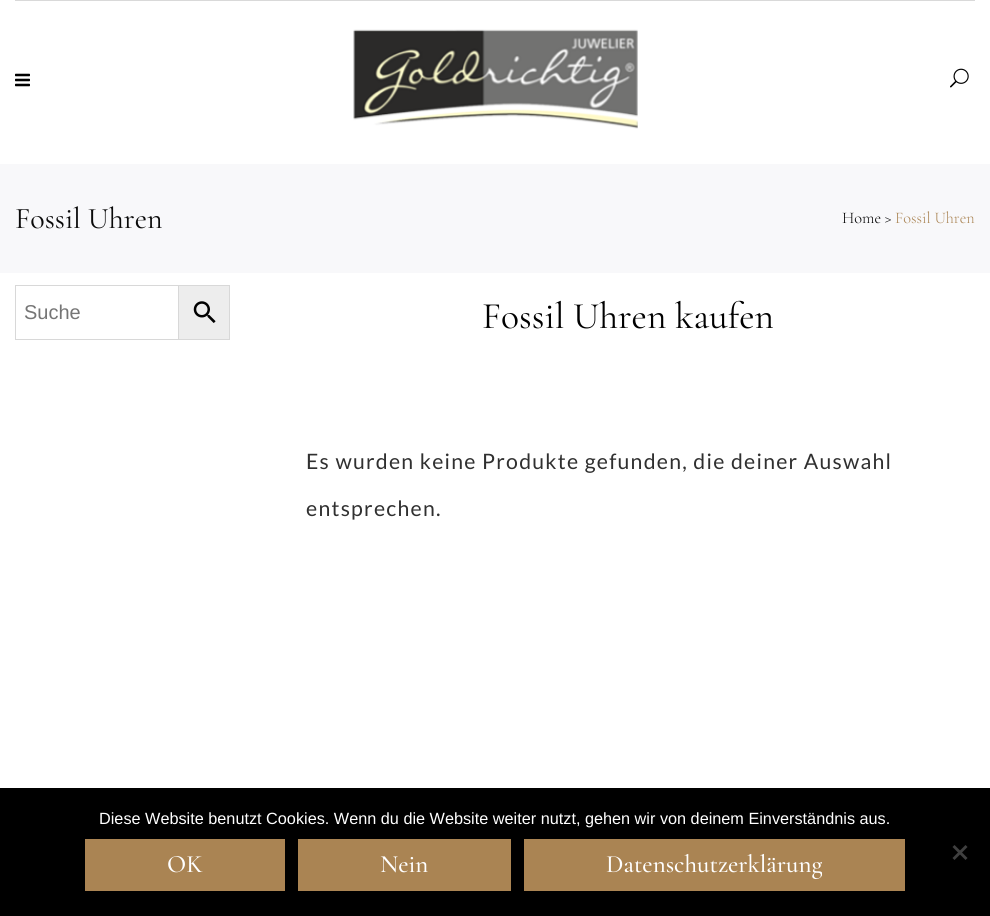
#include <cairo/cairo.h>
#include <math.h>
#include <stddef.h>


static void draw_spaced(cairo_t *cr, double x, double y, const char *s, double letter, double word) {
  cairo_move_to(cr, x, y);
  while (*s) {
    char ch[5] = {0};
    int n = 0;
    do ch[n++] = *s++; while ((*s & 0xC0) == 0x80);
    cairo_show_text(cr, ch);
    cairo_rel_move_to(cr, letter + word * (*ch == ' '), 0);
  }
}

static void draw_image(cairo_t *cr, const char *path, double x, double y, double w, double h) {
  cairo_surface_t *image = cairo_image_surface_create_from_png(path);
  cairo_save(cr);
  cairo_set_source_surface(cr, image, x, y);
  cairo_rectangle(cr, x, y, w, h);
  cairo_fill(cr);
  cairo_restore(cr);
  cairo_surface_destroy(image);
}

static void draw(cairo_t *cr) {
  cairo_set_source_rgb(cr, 1, 1, 1);
  cairo_paint(cr);
  cairo_set_source_rgb(cr, 217 / 255.0, 217 / 255.0, 217 / 255.0);
  cairo_rectangle(cr, 15, 0, 960, 1);
  cairo_fill(cr);
  draw_image(cr, "images/1.png", 15, 73, 15, 14);
  draw_image(cr, "images/2.png", 353, 29, 285, 100);
  draw_image(cr, "images/3.png", 950, 68, 19, 20);
  cairo_set_source_rgb(cr, 248 / 255.0, 248 / 255.0, 250 / 255.0);
  cairo_rectangle(cr, 0, 164, 990, 109);
  cairo_fill(cr);
  cairo_set_source_rgb(cr, 237 / 255.0, 237 / 255.0, 237 / 255.0);
  cairo_rectangle(cr, 178.5, 285.5, 51, 54);
  cairo_fill_preserve(cr);
  cairo_set_source_rgb(cr, 216 / 255.0, 216 / 255.0, 216 / 255.0);
  cairo_set_line_width(cr, 1);
  cairo_stroke(cr);
  cairo_rectangle(cr, 15.5, 285.5, 163, 54);
  cairo_stroke(cr);
  draw_image(cr, "images/4.png", 193, 301, 23, 22);
  cairo_set_source_rgb(cr, 0, 0, 0);
  cairo_rectangle(cr, 0, 788, 990, 128);
  cairo_fill(cr);
  cairo_set_source_rgb(cr, 170 / 255.0, 132 / 255.0, 83 / 255.0);
  cairo_rectangle(cr, 85, 839, 200, 52);
  cairo_fill(cr);
  cairo_rectangle(cr, 298, 839, 213, 52);
  cairo_fill(cr);
  cairo_rectangle(cr, 524, 839, 381, 52);
  cairo_fill(cr);
  cairo_set_source_rgb(cr, 64 / 255.0, 64 / 255.0, 64 / 255.0);
  cairo_new_path(cr);
  cairo_move_to(cr, 965.5, 845);
  cairo_line_to(cr, 967.5, 847);
  cairo_line_to(cr, 954.5, 860);
  cairo_line_to(cr, 952.5, 858);
  cairo_close_path(cr);
  cairo_fill(cr);
  cairo_new_path(cr);
  cairo_move_to(cr, 952.5, 847);
  cairo_line_to(cr, 954.5, 845);
  cairo_line_to(cr, 967.5, 858);
  cairo_line_to(cr, 965.5, 860);
  cairo_close_path(cr);
  cairo_fill(cr);
  cairo_select_font_face(cr, "Cormorant Garamond", CAIRO_FONT_SLANT_NORMAL, CAIRO_FONT_WEIGHT_NORMAL);
  cairo_set_font_size(cr, 30);
  cairo_set_source_rgb(cr, 10 / 255.0, 10 / 255.0, 10 / 255.0);
  cairo_move_to(cr, 15, 228);
  cairo_show_text(cr, "Fossil Uhren");
  cairo_select_font_face(cr, "Cormorant Garamond Light", CAIRO_FONT_SLANT_NORMAL, CAIRO_FONT_WEIGHT_NORMAL);
  cairo_set_font_size(cr, 16.25);
  cairo_set_source_rgb(cr, 0, 0, 0);
  cairo_move_to(cr, 842, 223);
  cairo_show_text(cr, "Home >");
  cairo_set_source_rgb(cr, 170 / 255.0, 132 / 255.0, 83 / 255.0);
  cairo_move_to(cr, 895, 223);
  cairo_show_text(cr, "Fossil Uhren");
  cairo_select_font_face(cr, "Liberation Sans", CAIRO_FONT_SLANT_NORMAL, CAIRO_FONT_WEIGHT_NORMAL);
  cairo_set_font_size(cr, 20);
  cairo_set_source_rgb(cr, 117 / 255.0, 117 / 255.0, 117 / 255.0);
  cairo_move_to(cr, 24, 319);
  cairo_show_text(cr, "Suche");
  cairo_select_font_face(cr, "Cormorant Garamond", CAIRO_FONT_SLANT_NORMAL, CAIRO_FONT_WEIGHT_NORMAL);
  cairo_set_font_size(cr, 37.5);
  cairo_set_source_rgb(cr, 0, 0, 0);
  cairo_move_to(cr, 482, 328);
  cairo_show_text(cr, "Fossil Uhren kaufen");
  cairo_select_font_face(cr, "Lato", CAIRO_FONT_SLANT_NORMAL, CAIRO_FONT_WEIGHT_NORMAL);
  cairo_set_font_size(cr, 21.25);
  cairo_set_source_rgb(cr, 48 / 255.0, 48 / 255.0, 48 / 255.0);
  draw_spaced(cr, 306, 469, "Es wurden keine Produkte gefunden, die deiner Auswahl", 1.25, 0);
  draw_spaced(cr, 306, 516, "entsprechen.", 1.25, 0);
  cairo_select_font_face(cr, "Liberation Sans", CAIRO_FONT_SLANT_NORMAL, CAIRO_FONT_WEIGHT_NORMAL);
  cairo_set_font_size(cr, 16.25);
  cairo_set_source_rgb(cr, 1, 1, 1);
  cairo_move_to(cr, 99, 824);
  cairo_show_text(cr, "Diese Website benutzt Cookies. Wenn du die Website weiter nutzt, gehen wir von deinem Einverständnis aus.");
  cairo_select_font_face(cr, "Cormorant Garamond Medium", CAIRO_FONT_SLANT_NORMAL, CAIRO_FONT_WEIGHT_NORMAL);
  cairo_set_font_size(cr, 25);
  cairo_move_to(cr, 167, 872);
  cairo_show_text(cr, "OK");
  cairo_move_to(cr, 380, 872);
  cairo_show_text(cr, "Nein");
  cairo_move_to(cr, 606, 872);
  cairo_show_text(cr, "Datenschutzerklärung");
}

int main(void) {
  cairo_surface_t *surface = cairo_image_surface_create(CAIRO_FORMAT_RGB24, 990, 916);
  cairo_t *cr = cairo_create(surface);
  cairo_font_options_t *options = cairo_font_options_create();
  cairo_font_options_set_hint_metrics(options, CAIRO_HINT_METRICS_OFF);
  cairo_font_options_set_hint_style(options, CAIRO_HINT_STYLE_NONE);
  cairo_set_font_options(cr, options);
  cairo_set_miter_limit(cr, 4);
  draw(cr);
  cairo_surface_write_to_png(surface, "out.png");
  cairo_font_options_destroy(options);
  cairo_destroy(cr);
  cairo_surface_destroy(surface);
  return 0;
}
